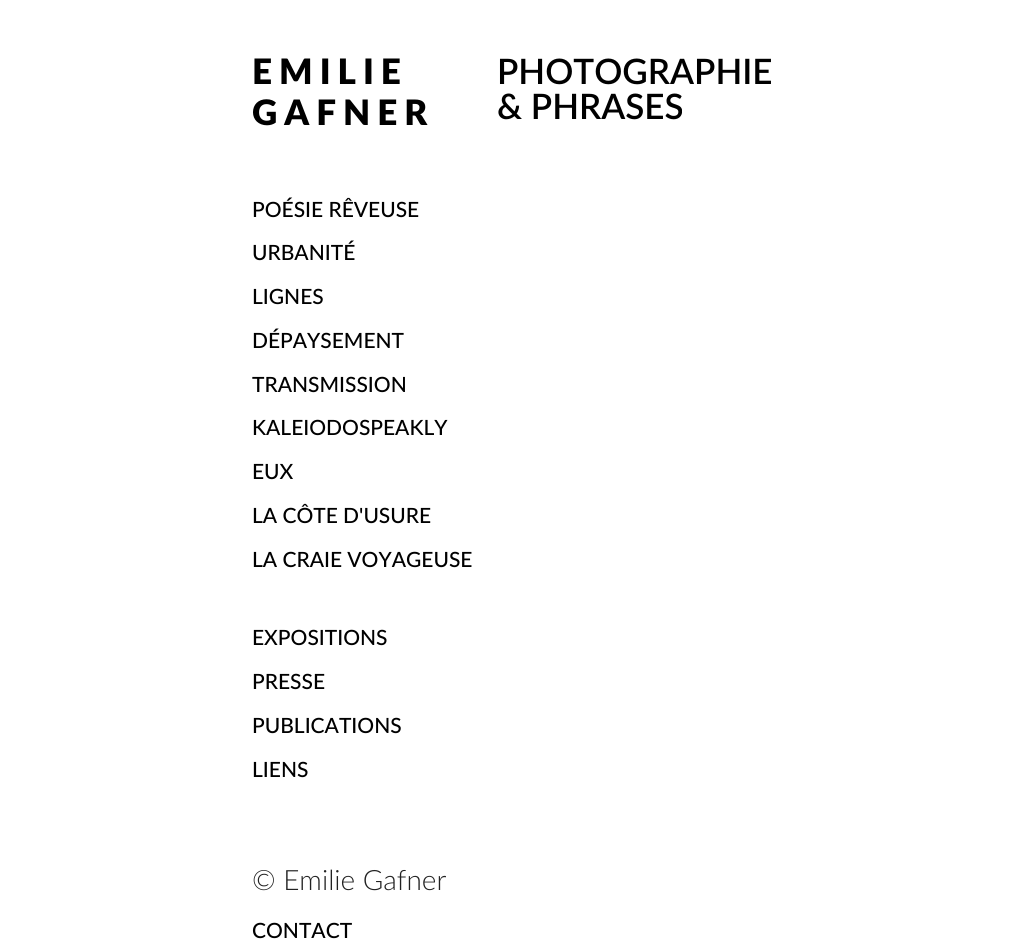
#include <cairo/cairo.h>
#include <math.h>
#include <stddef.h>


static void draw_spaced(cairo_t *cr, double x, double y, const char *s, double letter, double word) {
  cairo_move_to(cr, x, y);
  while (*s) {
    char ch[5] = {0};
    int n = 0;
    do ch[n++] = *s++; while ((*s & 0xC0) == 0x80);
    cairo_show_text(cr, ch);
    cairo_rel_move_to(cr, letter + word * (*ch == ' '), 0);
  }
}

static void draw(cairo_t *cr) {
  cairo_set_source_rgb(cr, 1, 1, 1);
  cairo_paint(cr);
  cairo_select_font_face(cr, "Lato Black", CAIRO_FONT_SLANT_NORMAL, CAIRO_FONT_WEIGHT_NORMAL);
  cairo_set_font_size(cr, 35);
  cairo_set_source_rgb(cr, 0, 0, 0);
  draw_spaced(cr, 252, 84, "EMILIE", 7, 0);
  draw_spaced(cr, 252, 125, "GAFNER", 7, 0);
  cairo_select_font_face(cr, "Lato SemiBold", CAIRO_FONT_SLANT_NORMAL, CAIRO_FONT_WEIGHT_NORMAL);
  cairo_move_to(cr, 497, 84);
  cairo_show_text(cr, "PHOTOGRAPHIE");
  cairo_move_to(cr, 497, 119);
  cairo_show_text(cr, "& PHRASES");
  cairo_select_font_face(cr, "Lato Medium", CAIRO_FONT_SLANT_NORMAL, CAIRO_FONT_WEIGHT_NORMAL);
  cairo_set_font_size(cr, 21);
  cairo_move_to(cr, 252, 217);
  cairo_show_text(cr, "POÉSIE RÊVEUSE");
  cairo_move_to(cr, 252, 260);
  cairo_show_text(cr, "URBANITÉ");
  cairo_move_to(cr, 252, 304);
  cairo_show_text(cr, "LIGNES");
  cairo_move_to(cr, 252, 348);
  cairo_show_text(cr, "DÉPAYSEMENT");
  cairo_move_to(cr, 252, 392);
  cairo_show_text(cr, "TRANSMISSION");
  cairo_move_to(cr, 252, 435);
  cairo_show_text(cr, "KALEIODOSPEAKLY");
  cairo_move_to(cr, 252, 479);
  cairo_show_text(cr, "EUX");
  cairo_move_to(cr, 252, 523);
  cairo_show_text(cr, "LA CÔTE D'USURE");
  cairo_move_to(cr, 252, 567);
  cairo_show_text(cr, "LA CRAIE VOYAGEUSE");
  cairo_move_to(cr, 252, 645);
  cairo_show_text(cr, "EXPOSITIONS");
  cairo_move_to(cr, 252, 689);
  cairo_show_text(cr, "PRESSE");
  cairo_move_to(cr, 252, 733);
  cairo_show_text(cr, "PUBLICATIONS");
  cairo_move_to(cr, 252, 777);
  cairo_show_text(cr, "LIENS");
  cairo_select_font_face(cr, "Lato Light", CAIRO_FONT_SLANT_NORMAL, CAIRO_FONT_WEIGHT_NORMAL);
  cairo_set_font_size(cr, 28);
  cairo_set_source_rgb(cr, 34 / 255.0, 34 / 255.0, 34 / 255.0);
  cairo_move_to(cr, 252, 890);
  cairo_show_text(cr, "© Emilie Gafner");
  cairo_select_font_face(cr, "Lato Medium", CAIRO_FONT_SLANT_NORMAL, CAIRO_FONT_WEIGHT_NORMAL);
  cairo_set_font_size(cr, 21);
  cairo_set_source_rgb(cr, 0, 0, 0);
  cairo_move_to(cr, 252, 938);
  cairo_show_text(cr, "CONTACT");
}

int main(void) {
  cairo_surface_t *surface = cairo_image_surface_create(CAIRO_FORMAT_RGB24, 1029, 939);
  cairo_t *cr = cairo_create(surface);
  cairo_font_options_t *options = cairo_font_options_create();
  cairo_font_options_set_hint_metrics(options, CAIRO_HINT_METRICS_OFF);
  cairo_font_options_set_hint_style(options, CAIRO_HINT_STYLE_NONE);
  cairo_set_font_options(cr, options);
  cairo_set_miter_limit(cr, 4);
  draw(cr);
  cairo_surface_write_to_png(surface, "out.png");
  cairo_font_options_destroy(options);
  cairo_destroy(cr);
  cairo_surface_destroy(surface);
  return 0;
}
